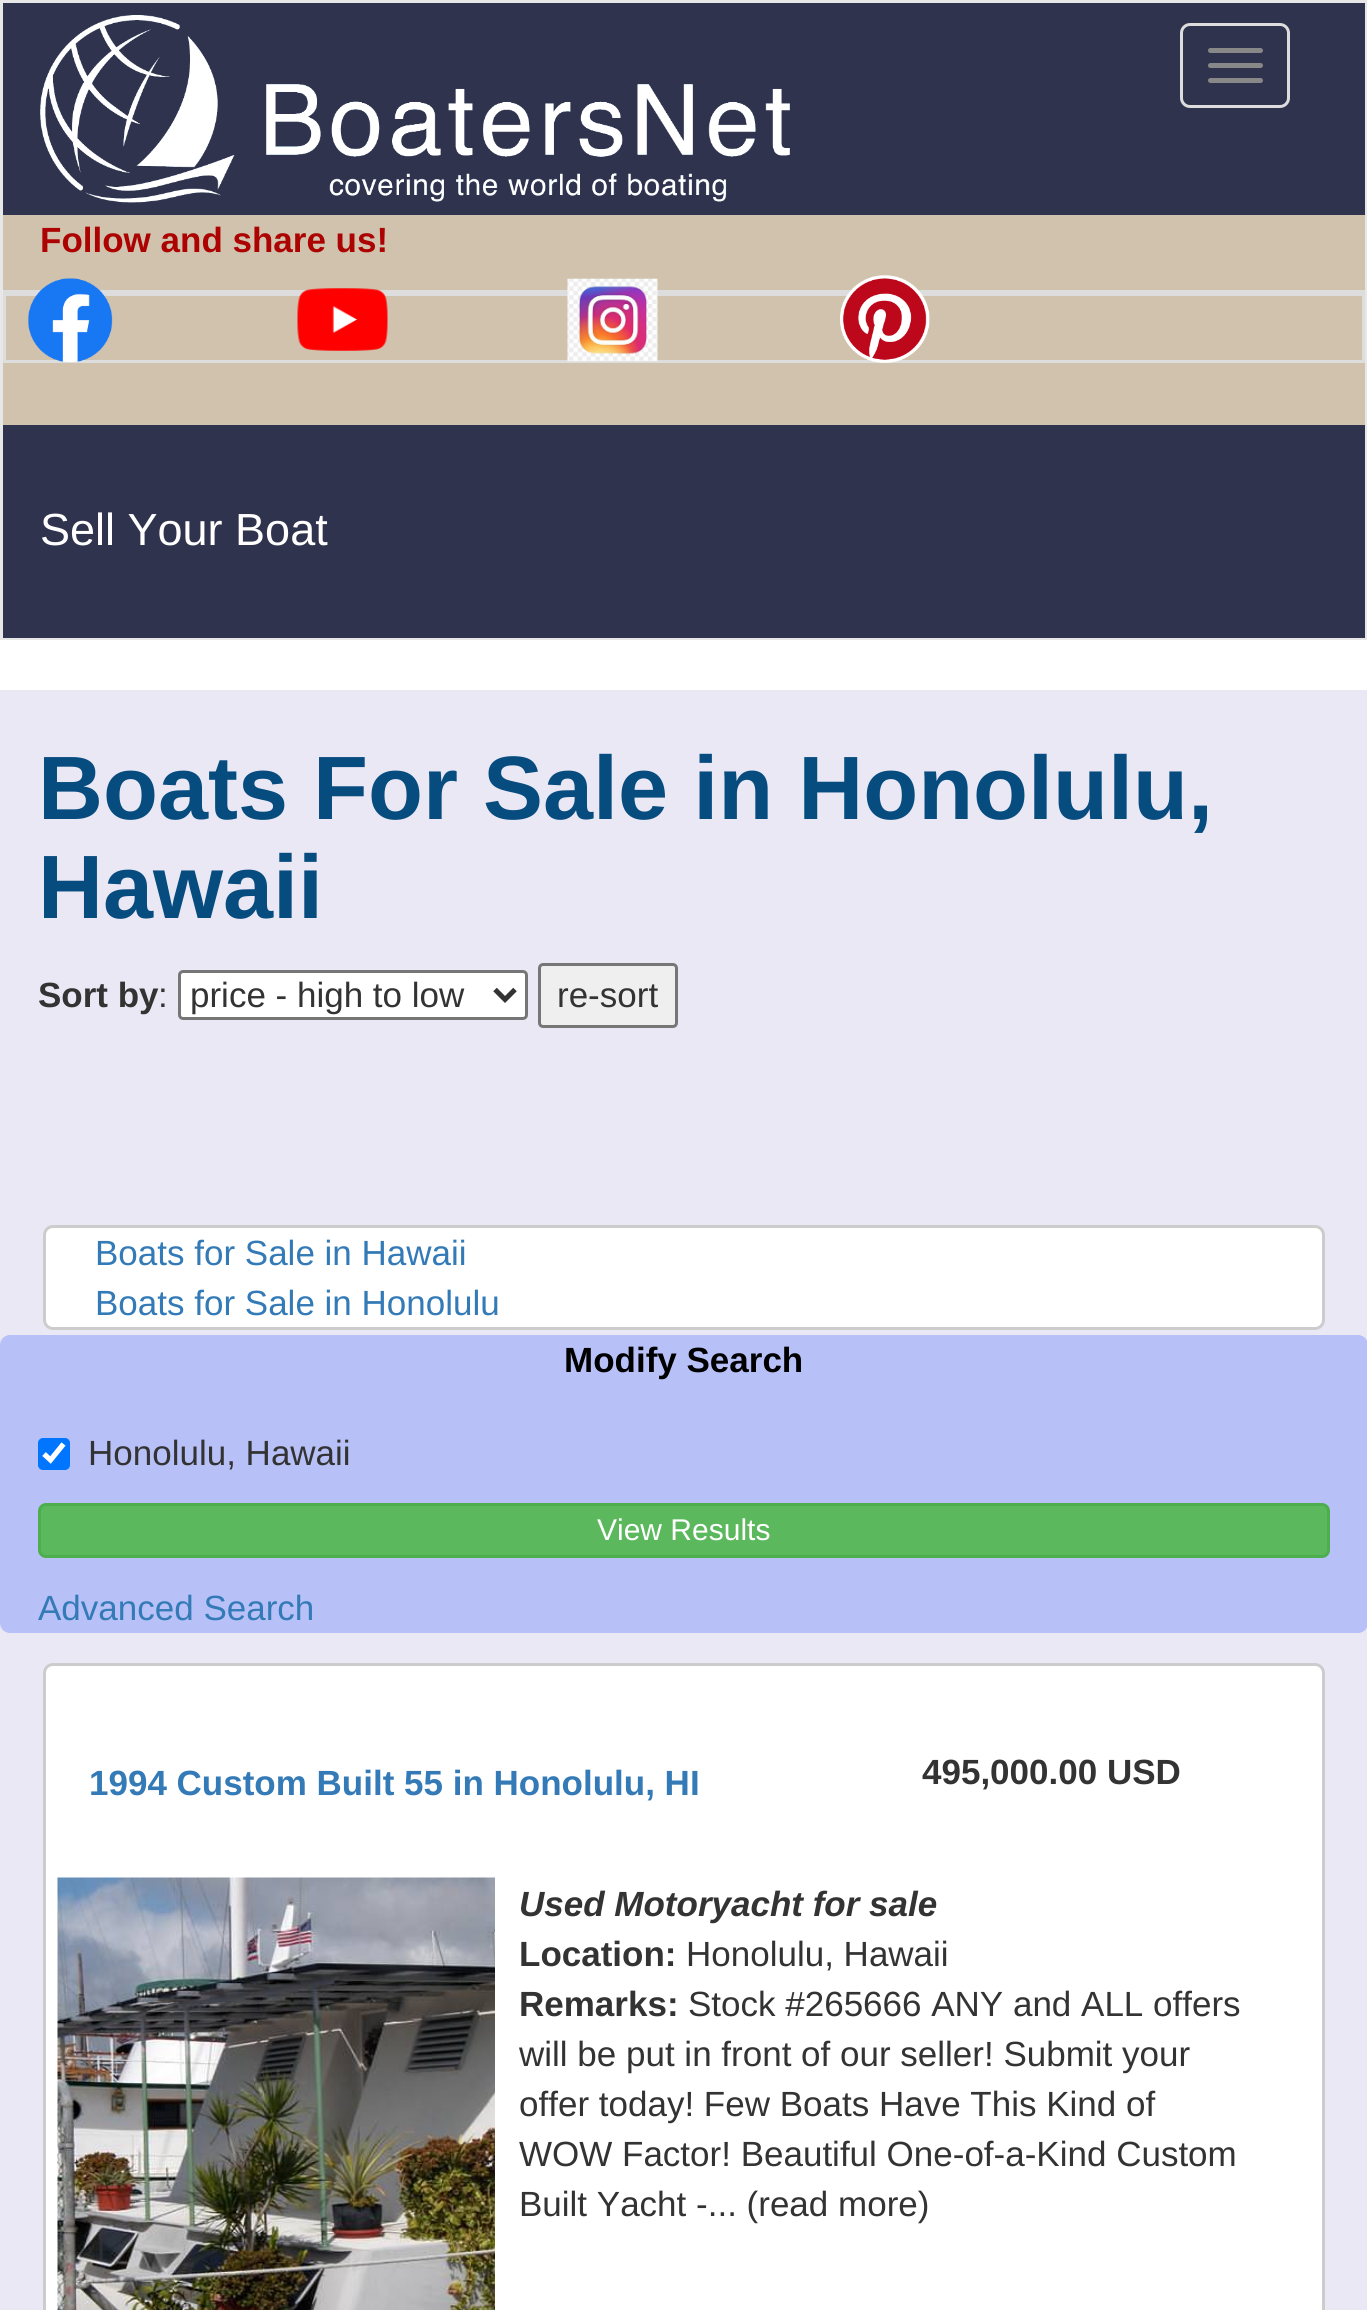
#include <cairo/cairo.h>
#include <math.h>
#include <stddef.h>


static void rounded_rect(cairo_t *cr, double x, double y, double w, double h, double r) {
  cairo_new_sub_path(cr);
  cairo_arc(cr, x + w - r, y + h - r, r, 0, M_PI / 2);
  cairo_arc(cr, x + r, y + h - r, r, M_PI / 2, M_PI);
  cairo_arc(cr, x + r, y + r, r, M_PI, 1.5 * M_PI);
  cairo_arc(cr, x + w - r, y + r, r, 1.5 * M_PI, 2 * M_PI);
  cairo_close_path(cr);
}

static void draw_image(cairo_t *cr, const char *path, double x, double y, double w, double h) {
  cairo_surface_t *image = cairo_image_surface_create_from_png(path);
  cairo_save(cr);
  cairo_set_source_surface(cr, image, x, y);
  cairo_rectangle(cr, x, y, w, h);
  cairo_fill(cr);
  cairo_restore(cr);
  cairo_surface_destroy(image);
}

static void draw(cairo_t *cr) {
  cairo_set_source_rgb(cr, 1, 1, 1);
  cairo_paint(cr);
  cairo_rectangle(cr, 1.5, 1.5, 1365, 637);
  cairo_set_source_rgb(cr, 231 / 255.0, 231 / 255.0, 231 / 255.0);
  cairo_set_line_width(cr, 3);
  cairo_stroke(cr);
  cairo_set_source_rgb(cr, 48 / 255.0, 51 / 255.0, 77 / 255.0);
  cairo_rectangle(cr, 3, 3, 1362, 635);
  cairo_fill(cr);
  draw_image(cr, "images/1.png", 40, 15, 750, 188);
  rounded_rect(cr, 1181.5, 24.5, 107, 82, 8.5);
  cairo_set_source_rgb(cr, 221 / 255.0, 221 / 255.0, 221 / 255.0);
  cairo_stroke(cr);
  cairo_set_source_rgb(cr, 136 / 255.0, 136 / 255.0, 136 / 255.0);
  rounded_rect(cr, 1208, 48, 55, 5, 2.5);
  cairo_fill(cr);
  rounded_rect(cr, 1208, 63, 55, 5, 2.5);
  cairo_fill(cr);
  rounded_rect(cr, 1208, 78, 55, 5, 2.5);
  cairo_fill(cr);
  cairo_set_source_rgb(cr, 208 / 255.0, 194 / 255.0, 172 / 255.0);
  cairo_rectangle(cr, 3, 215, 1362, 210);
  cairo_fill(cr);
  cairo_rectangle(cr, 4.5, 291.5, 1359, 70);
  cairo_set_source_rgb(cr, 221 / 255.0, 221 / 255.0, 221 / 255.0);
  cairo_stroke(cr);
  cairo_rectangle(cr, 5, 293, 1358, 3);
  cairo_fill(cr);
  draw_image(cr, "images/2.png", 28, 278, 85, 85);
  draw_image(cr, "images/3.png", 297, 288, 91, 63);
  draw_image(cr, "images/4.png", 567, 278, 91, 84);
  draw_image(cr, "images/5.png", 840, 275, 90, 88);
  cairo_set_source_rgb(cr, 235 / 255.0, 232 / 255.0, 245 / 255.0);
  cairo_rectangle(cr, 0, 690, 1367, 1620);
  cairo_fill(cr);
  cairo_set_source_rgb(cr, 1, 1, 1);
  rounded_rect(cr, 179.5, 971.5, 347, 47, 3.5);
  cairo_fill_preserve(cr);
  cairo_set_source_rgb(cr, 118 / 255.0, 118 / 255.0, 118 / 255.0);
  cairo_stroke(cr);
  cairo_new_path(cr);
  cairo_move_to(cr, 495, 989.5);
  cairo_line_to(cr, 505, 999.5);
  cairo_line_to(cr, 515, 989.5);
  cairo_set_source_rgb(cr, 51 / 255.0, 51 / 255.0, 51 / 255.0);
  cairo_set_line_width(cr, 5);
  cairo_stroke(cr);
  cairo_set_source_rgb(cr, 239 / 255.0, 239 / 255.0, 239 / 255.0);
  rounded_rect(cr, 539.5, 964.5, 137, 62, 3.5);
  cairo_fill_preserve(cr);
  cairo_set_source_rgb(cr, 118 / 255.0, 118 / 255.0, 118 / 255.0);
  cairo_set_line_width(cr, 3);
  cairo_stroke(cr);
  cairo_set_source_rgb(cr, 1, 1, 1);
  rounded_rect(cr, 44.5, 1226.5, 1279, 102, 8.5);
  cairo_fill_preserve(cr);
  cairo_set_source_rgb(cr, 204 / 255.0, 204 / 255.0, 204 / 255.0);
  cairo_stroke(cr);
  cairo_set_source_rgb(cr, 183 / 255.0, 193 / 255.0, 248 / 255.0);
  rounded_rect(cr, 0, 1335, 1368, 298, 10);
  cairo_fill(cr);
  cairo_set_source_rgb(cr, 0, 117 / 255.0, 1);
  rounded_rect(cr, 38, 1438, 32, 32, 5);
  cairo_fill(cr);
  cairo_new_path(cr);
  cairo_move_to(cr, 44, 1454);
  cairo_line_to(cr, 50.5, 1460);
  cairo_line_to(cr, 63.5, 1444);
  cairo_set_source_rgb(cr, 1, 1, 1);
  cairo_set_line_width(cr, 5.2);
  cairo_stroke(cr);
  cairo_set_source_rgb(cr, 92 / 255.0, 184 / 255.0, 92 / 255.0);
  rounded_rect(cr, 39.5, 1504.5, 1289, 52, 6.5);
  cairo_fill_preserve(cr);
  cairo_set_source_rgb(cr, 76 / 255.0, 174 / 255.0, 76 / 255.0);
  cairo_set_line_width(cr, 3);
  cairo_stroke(cr);
  cairo_set_source_rgb(cr, 1, 1, 1);
  rounded_rect(cr, 44.5, 1664.5, 1279, 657, 8.5);
  cairo_fill_preserve(cr);
  cairo_set_source_rgb(cr, 204 / 255.0, 204 / 255.0, 204 / 255.0);
  cairo_stroke(cr);
  draw_image(cr, "images/6.png", 57, 1877, 438, 433);
  cairo_select_font_face(cr, "Liberation Sans", CAIRO_FONT_SLANT_NORMAL, CAIRO_FONT_WEIGHT_BOLD);
  cairo_set_font_size(cr, 35);
  cairo_set_source_rgb(cr, 172 / 255.0, 2 / 255.0, 2 / 255.0);
  cairo_move_to(cr, 40, 252);
  cairo_show_text(cr, "Follow and share us!");
  cairo_select_font_face(cr, "Liberation Sans", CAIRO_FONT_SLANT_NORMAL, CAIRO_FONT_WEIGHT_NORMAL);
  cairo_set_font_size(cr, 45);
  cairo_set_source_rgb(cr, 1, 1, 1);
  cairo_move_to(cr, 40, 545);
  cairo_show_text(cr, "Sell Your Boat");
  cairo_select_font_face(cr, "Liberation Sans", CAIRO_FONT_SLANT_NORMAL, CAIRO_FONT_WEIGHT_BOLD);
  cairo_set_font_size(cr, 90);
  cairo_set_source_rgb(cr, 7 / 255.0, 76 / 255.0, 127 / 255.0);
  cairo_move_to(cr, 38, 819);
  cairo_show_text(cr, "Boats For Sale in Honolulu,");
  cairo_move_to(cr, 38, 918);
  cairo_show_text(cr, "Hawaii");
  cairo_set_font_size(cr, 35);
  cairo_set_source_rgb(cr, 51 / 255.0, 51 / 255.0, 51 / 255.0);
  cairo_move_to(cr, 38, 1007);
  cairo_show_text(cr, "Sort by");
  cairo_select_font_face(cr, "Liberation Sans", CAIRO_FONT_SLANT_NORMAL, CAIRO_FONT_WEIGHT_NORMAL);
  cairo_move_to(cr, 158, 1007);
  cairo_show_text(cr, ":");
  cairo_move_to(cr, 190, 1007);
  cairo_show_text(cr, "price - high to low");
  cairo_move_to(cr, 557, 1007);
  cairo_show_text(cr, "re-sort");
  cairo_set_source_rgb(cr, 51 / 255.0, 122 / 255.0, 183 / 255.0);
  cairo_move_to(cr, 95, 1265);
  cairo_show_text(cr, "Boats for Sale in Hawaii");
  cairo_move_to(cr, 95, 1315);
  cairo_show_text(cr, "Boats for Sale in Honolulu");
  cairo_select_font_face(cr, "Liberation Sans", CAIRO_FONT_SLANT_NORMAL, CAIRO_FONT_WEIGHT_BOLD);
  cairo_set_source_rgb(cr, 0, 0, 0);
  cairo_move_to(cr, 564, 1372);
  cairo_show_text(cr, "Modify Search");
  cairo_select_font_face(cr, "Liberation Sans", CAIRO_FONT_SLANT_NORMAL, CAIRO_FONT_WEIGHT_NORMAL);
  cairo_set_source_rgb(cr, 51 / 255.0, 51 / 255.0, 51 / 255.0);
  cairo_move_to(cr, 88, 1465);
  cairo_show_text(cr, "Honolulu, Hawaii");
  cairo_set_font_size(cr, 30);
  cairo_set_source_rgb(cr, 1, 1, 1);
  cairo_move_to(cr, 597, 1540);
  cairo_show_text(cr, "View Results");
  cairo_set_font_size(cr, 35);
  cairo_set_source_rgb(cr, 51 / 255.0, 122 / 255.0, 183 / 255.0);
  cairo_move_to(cr, 38, 1620);
  cairo_show_text(cr, "Advanced Search");
  cairo_select_font_face(cr, "Liberation Sans", CAIRO_FONT_SLANT_NORMAL, CAIRO_FONT_WEIGHT_BOLD);
  cairo_move_to(cr, 89, 1795);
  cairo_show_text(cr, "1994 Custom Built 55 in Honolulu, HI");
  cairo_set_source_rgb(cr, 51 / 255.0, 51 / 255.0, 51 / 255.0);
  cairo_move_to(cr, 922, 1784);
  cairo_show_text(cr, "495,000.00 USD");
  cairo_select_font_face(cr, "Liberation Sans", CAIRO_FONT_SLANT_ITALIC, CAIRO_FONT_WEIGHT_BOLD);
  cairo_move_to(cr, 519, 1916);
  cairo_show_text(cr, "Used Motoryacht for sale");
  cairo_select_font_face(cr, "Liberation Sans", CAIRO_FONT_SLANT_NORMAL, CAIRO_FONT_WEIGHT_BOLD);
  cairo_move_to(cr, 519, 1966);
  cairo_show_text(cr, "Location:");
  cairo_select_font_face(cr, "Liberation Sans", CAIRO_FONT_SLANT_NORMAL, CAIRO_FONT_WEIGHT_NORMAL);
  cairo_move_to(cr, 686, 1966);
  cairo_show_text(cr, "Honolulu, Hawaii");
  cairo_select_font_face(cr, "Liberation Sans", CAIRO_FONT_SLANT_NORMAL, CAIRO_FONT_WEIGHT_BOLD);
  cairo_move_to(cr, 519, 2016);
  cairo_show_text(cr, "Remarks:");
  cairo_select_font_face(cr, "Liberation Sans", CAIRO_FONT_SLANT_NORMAL, CAIRO_FONT_WEIGHT_NORMAL);
  cairo_move_to(cr, 688, 2016);
  cairo_show_text(cr, "Stock #265666 ANY and ALL offers");
  cairo_move_to(cr, 519, 2066);
  cairo_show_text(cr, "will be put in front of our seller! Submit your");
  cairo_move_to(cr, 519, 2116);
  cairo_show_text(cr, "offer today! Few Boats Have This Kind of");
  cairo_move_to(cr, 519, 2166);
  cairo_show_text(cr, "WOW Factor! Beautiful One-of-a-Kind Custom");
  cairo_move_to(cr, 519, 2216);
  cairo_show_text(cr, "Built Yacht -... (read more)");
}

int main(void) {
  cairo_surface_t *surface = cairo_image_surface_create(CAIRO_FORMAT_RGB24, 1367, 2310);
  cairo_t *cr = cairo_create(surface);
  cairo_font_options_t *options = cairo_font_options_create();
  cairo_font_options_set_hint_metrics(options, CAIRO_HINT_METRICS_OFF);
  cairo_font_options_set_hint_style(options, CAIRO_HINT_STYLE_NONE);
  cairo_set_font_options(cr, options);
  cairo_set_miter_limit(cr, 4);
  draw(cr);
  cairo_surface_write_to_png(surface, "out.png");
  cairo_font_options_destroy(options);
  cairo_destroy(cr);
  cairo_surface_destroy(surface);
  return 0;
}
